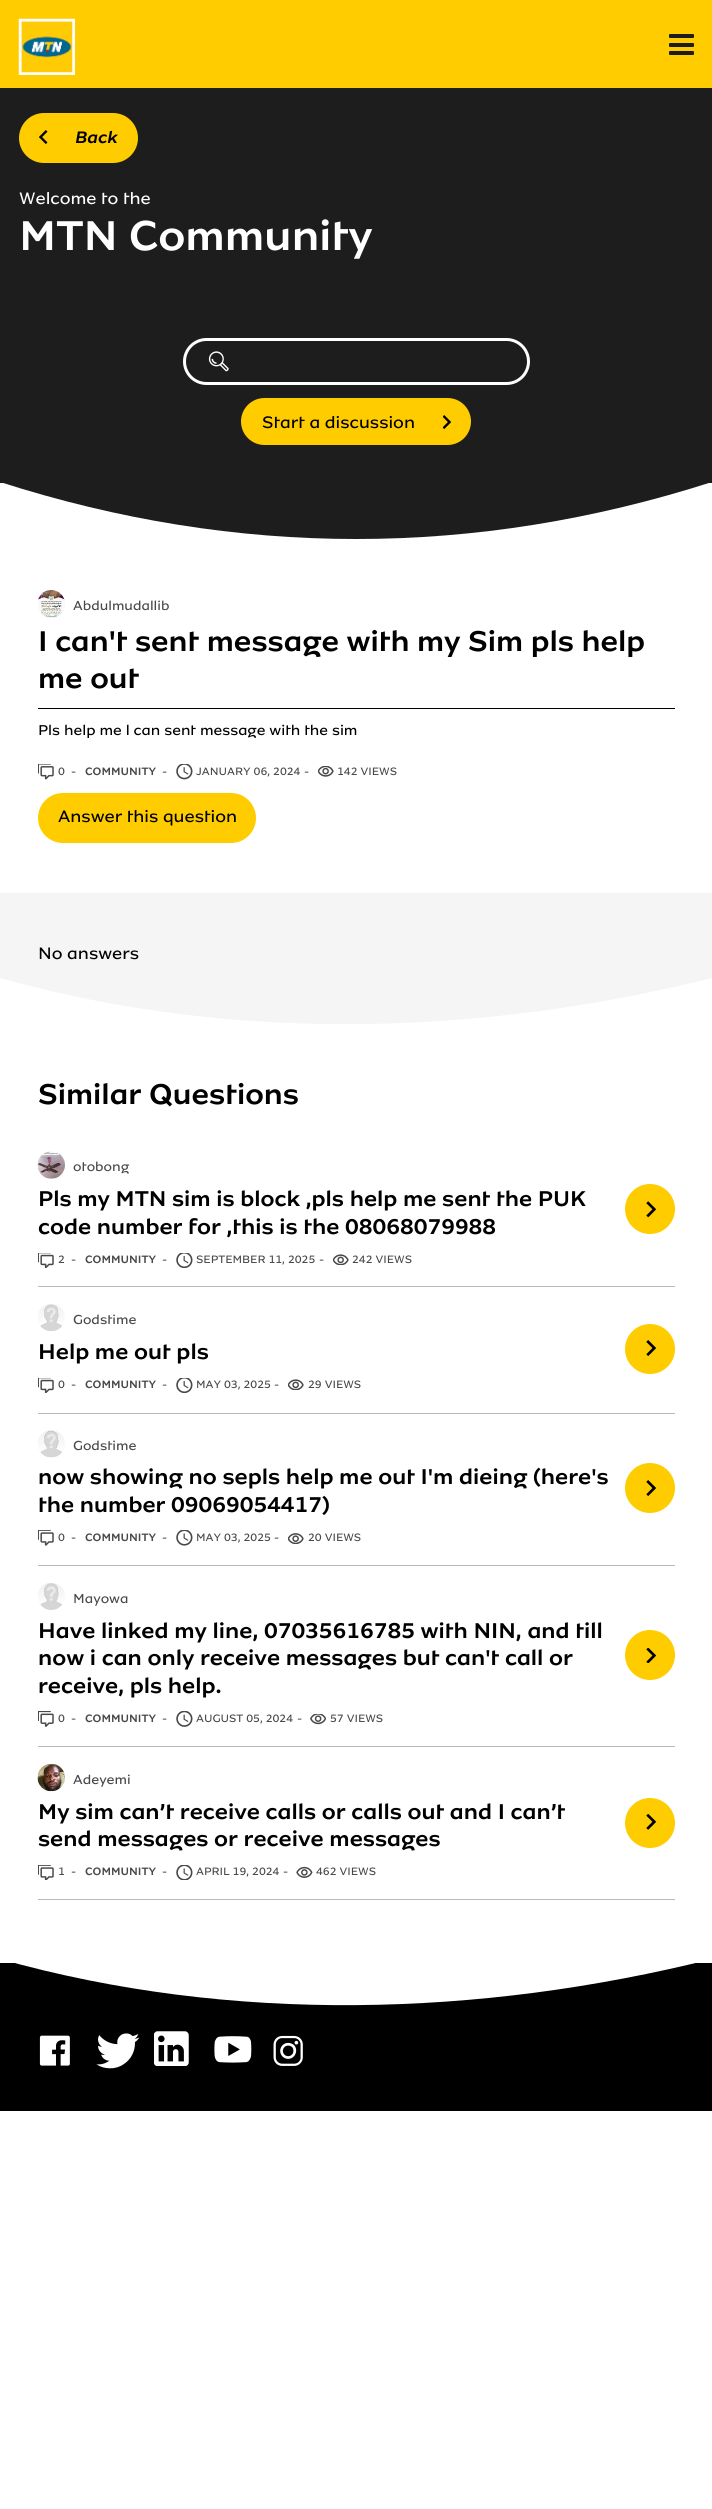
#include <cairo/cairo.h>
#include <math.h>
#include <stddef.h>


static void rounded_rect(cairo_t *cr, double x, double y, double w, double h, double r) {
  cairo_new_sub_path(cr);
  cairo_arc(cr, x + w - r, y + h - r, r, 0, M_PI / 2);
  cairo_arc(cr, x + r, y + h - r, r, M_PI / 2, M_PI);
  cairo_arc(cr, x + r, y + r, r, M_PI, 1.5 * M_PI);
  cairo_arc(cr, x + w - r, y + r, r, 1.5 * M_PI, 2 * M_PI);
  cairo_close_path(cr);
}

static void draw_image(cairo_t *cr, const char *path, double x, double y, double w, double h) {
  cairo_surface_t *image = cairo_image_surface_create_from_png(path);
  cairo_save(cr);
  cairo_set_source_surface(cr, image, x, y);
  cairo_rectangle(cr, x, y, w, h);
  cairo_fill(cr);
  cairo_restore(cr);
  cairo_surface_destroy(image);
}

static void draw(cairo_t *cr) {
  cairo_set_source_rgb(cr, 1, 1, 1);
  cairo_paint(cr);
  cairo_set_source_rgb(cr, 1, 204 / 255.0, 0);
  cairo_rectangle(cr, 0, 0, 712, 88);
  cairo_fill(cr);
  draw_image(cr, "images/1.png", 18, 18, 57, 57);
  cairo_set_source_rgb(cr, 29 / 255.0, 29 / 255.0, 29 / 255.0);
  rounded_rect(cr, 669, 34, 25, 4, 1);
  cairo_fill(cr);
  rounded_rect(cr, 669, 43, 25, 4, 1);
  cairo_fill(cr);
  rounded_rect(cr, 669, 51, 25, 4, 1);
  cairo_fill(cr);
  cairo_rectangle(cr, 0, 88, 712, 395);
  cairo_fill(cr);
  cairo_set_source_rgb(cr, 1, 204 / 255.0, 0);
  rounded_rect(cr, 19, 113, 119, 50, 25);
  cairo_fill(cr);
  draw_image(cr, "images/2.png", 39, 130, 9, 14);
  rounded_rect(cr, 184.5, 339.5, 344, 44, 22);
  cairo_set_source_rgb(cr, 1, 1, 1);
  cairo_set_line_width(cr, 3);
  cairo_stroke(cr);
  draw_image(cr, "images/3.png", 208, 351, 21, 21);
  cairo_set_source_rgb(cr, 1, 204 / 255.0, 0);
  rounded_rect(cr, 241, 398, 230, 47, 23.5);
  cairo_fill(cr);
  draw_image(cr, "images/4.png", 443, 415, 8, 14);
  cairo_save(cr);
  cairo_rectangle(cr, 0, 483, 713, 57);
  cairo_clip(cr);
  cairo_set_source_rgb(cr, 29 / 255.0, 29 / 255.0, 29 / 255.0);
  cairo_new_path(cr);
  cairo_move_to(cr, 0, 482);
  cairo_curve_to(cr, 237, 558, 475, 558, 712, 482);
  cairo_close_path(cr);
  cairo_fill(cr);
  cairo_restore(cr);
  draw_image(cr, "images/5.png", 38, 590, 27, 28);
  cairo_set_source_rgb(cr, 0, 0, 0);
  cairo_rectangle(cr, 38, 708, 637, 1);
  cairo_fill(cr);
  draw_image(cr, "images/6.png", 38, 764, 16, 16);
  draw_image(cr, "images/7.png", 176, 764, 17, 16);
  draw_image(cr, "images/8.png", 318, 766, 16, 11);
  cairo_set_source_rgb(cr, 1, 204 / 255.0, 0);
  rounded_rect(cr, 38, 793, 218, 50, 25);
  cairo_fill(cr);
  cairo_set_source_rgb(cr, 245 / 255.0, 245 / 255.0, 245 / 255.0);
  cairo_rectangle(cr, 0, 893, 712, 132);
  cairo_fill(cr);
  cairo_set_source_rgb(cr, 1, 1, 1);
  cairo_new_path(cr);
  cairo_move_to(cr, 0, 978);
  cairo_curve_to(cr, 231, 1043, 480, 1036, 712, 978);
  cairo_line_to(cr, 712, 1026);
  cairo_line_to(cr, 0, 1026);
  cairo_close_path(cr);
  cairo_fill(cr);
  cairo_set_source_rgb(cr, 183 / 255.0, 186 / 255.0, 186 / 255.0);
  cairo_rectangle(cr, 38, 1286, 637, 1);
  cairo_fill(cr);
  draw_image(cr, "images/9.png", 37, 1151, 28, 28);
  cairo_set_source_rgb(cr, 1, 204 / 255.0, 0);
  cairo_arc(cr, 650, 1209, 25, 0, 2 * M_PI);
  cairo_fill(cr);
  draw_image(cr, "images/10.png", 646, 1201, 10, 17);
  draw_image(cr, "images/11.png", 38, 1253, 16, 15);
  draw_image(cr, "images/12.png", 176, 1253, 17, 15);
  draw_image(cr, "images/13.png", 333, 1254, 16, 11);
  cairo_set_source_rgb(cr, 183 / 255.0, 186 / 255.0, 186 / 255.0);
  cairo_rectangle(cr, 38, 1413, 637, 1);
  cairo_fill(cr);
  draw_image(cr, "images/14.png", 38, 1304, 27, 27);
  cairo_set_source_rgb(cr, 1, 204 / 255.0, 0);
  cairo_arc(cr, 650, 1349, 25, 0, 2 * M_PI);
  cairo_fill(cr);
  draw_image(cr, "images/15.png", 646, 1340, 10, 16);
  draw_image(cr, "images/11.png", 38, 1378, 16, 15);
  draw_image(cr, "images/12.png", 176, 1378, 17, 15);
  draw_image(cr, "images/13.png", 288, 1379, 16, 11);
  cairo_set_source_rgb(cr, 183 / 255.0, 186 / 255.0, 186 / 255.0);
  cairo_rectangle(cr, 38, 1565, 637, 1);
  cairo_fill(cr);
  draw_image(cr, "images/16.png", 38, 1430, 27, 28);
  cairo_set_source_rgb(cr, 1, 204 / 255.0, 0);
  cairo_arc(cr, 650, 1488, 25, 0, 2 * M_PI);
  cairo_fill(cr);
  draw_image(cr, "images/15.png", 646, 1480, 10, 16);
  draw_image(cr, "images/17.png", 38, 1530, 16, 16);
  draw_image(cr, "images/18.png", 176, 1530, 17, 16);
  draw_image(cr, "images/19.png", 288, 1533, 16, 11);
  cairo_set_source_rgb(cr, 183 / 255.0, 186 / 255.0, 186 / 255.0);
  cairo_rectangle(cr, 38, 1746, 637, 1);
  cairo_fill(cr);
  draw_image(cr, "images/20.png", 38, 1583, 27, 27);
  cairo_set_source_rgb(cr, 1, 204 / 255.0, 0);
  cairo_arc(cr, 650, 1655, 25, 0, 2 * M_PI);
  cairo_fill(cr);
  draw_image(cr, "images/21.png", 646, 1648, 10, 15);
  draw_image(cr, "images/22.png", 38, 1711, 16, 16);
  draw_image(cr, "images/23.png", 176, 1711, 17, 16);
  draw_image(cr, "images/24.png", 310, 1714, 16, 11);
  cairo_set_source_rgb(cr, 183 / 255.0, 186 / 255.0, 186 / 255.0);
  cairo_rectangle(cr, 38, 1899, 637, 1);
  cairo_fill(cr);
  draw_image(cr, "images/25.png", 37, 1763, 28, 29);
  cairo_set_source_rgb(cr, 1, 204 / 255.0, 0);
  cairo_arc(cr, 650, 1823, 25, 0, 2 * M_PI);
  cairo_fill(cr);
  draw_image(cr, "images/26.png", 646, 1814, 10, 16);
  draw_image(cr, "images/27.png", 38, 1865, 16, 15);
  draw_image(cr, "images/28.png", 176, 1865, 17, 15);
  draw_image(cr, "images/29.png", 296, 1866, 17, 12);
  cairo_save(cr);
  cairo_rectangle(cr, 0, 1963, 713, 43);
  cairo_clip(cr);
  cairo_set_source_rgb(cr, 0, 0, 0);
  cairo_new_path(cr);
  cairo_move_to(cr, 0, 1959);
  cairo_curve_to(cr, 231, 2024, 480, 2017, 712, 1959);
  cairo_line_to(cr, 712, 2007);
  cairo_line_to(cr, 0, 2007);
  cairo_close_path(cr);
  cairo_fill(cr);
  cairo_restore(cr);
  cairo_set_source_rgb(cr, 0, 0, 0);
  cairo_rectangle(cr, 0, 2006, 712, 105);
  cairo_fill(cr);
  draw_image(cr, "images/30.png", 39, 2035, 31, 31);
  draw_image(cr, "images/31.png", 96, 2033, 44, 36);
  draw_image(cr, "images/32.png", 154, 2031, 35, 35);
  draw_image(cr, "images/33.png", 214, 2036, 38, 27);
  draw_image(cr, "images/34.png", 273, 2035, 30, 31);
  cairo_select_font_face(cr, "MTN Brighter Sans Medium", CAIRO_FONT_SLANT_ITALIC, CAIRO_FONT_WEIGHT_NORMAL);
  cairo_set_font_size(cr, 17.5);
  cairo_move_to(cr, 75, 143);
  cairo_show_text(cr, "Back");
  cairo_select_font_face(cr, "MTN Brighter Sans", CAIRO_FONT_SLANT_NORMAL, CAIRO_FONT_WEIGHT_NORMAL);
  cairo_set_source_rgb(cr, 1, 1, 1);
  cairo_move_to(cr, 19, 204);
  cairo_show_text(cr, "Welcome to the");
  cairo_select_font_face(cr, "MTN Brighter Sans Medium", CAIRO_FONT_SLANT_NORMAL, CAIRO_FONT_WEIGHT_NORMAL);
  cairo_set_font_size(cr, 43.75);
  cairo_move_to(cr, 19, 250);
  cairo_show_text(cr, "MTN Community");
  cairo_select_font_face(cr, "MTN Brighter Sans", CAIRO_FONT_SLANT_NORMAL, CAIRO_FONT_WEIGHT_NORMAL);
  cairo_set_font_size(cr, 17.5);
  cairo_set_source_rgb(cr, 0, 0, 0);
  cairo_move_to(cr, 262, 428);
  cairo_show_text(cr, "Start a discussion");
  cairo_set_font_size(cr, 13.75);
  cairo_set_source_rgb(cr, 72 / 255.0, 72 / 255.0, 72 / 255.0);
  cairo_move_to(cr, 73, 610);
  cairo_show_text(cr, "Abdulmudallib");
  cairo_select_font_face(cr, "MTN Brighter Sans Medium", CAIRO_FONT_SLANT_NORMAL, CAIRO_FONT_WEIGHT_NORMAL);
  cairo_set_font_size(cr, 30);
  cairo_set_source_rgb(cr, 0, 0, 0);
  cairo_move_to(cr, 38, 651);
  cairo_show_text(cr, "I can't sent message with my Sim pls help");
  cairo_move_to(cr, 38, 688);
  cairo_show_text(cr, "me out");
  cairo_select_font_face(cr, "MTN Brighter Sans", CAIRO_FONT_SLANT_NORMAL, CAIRO_FONT_WEIGHT_NORMAL);
  cairo_set_font_size(cr, 15);
  cairo_move_to(cr, 38, 735);
  cairo_show_text(cr, "Pls help me l can sent message with the sim");
  cairo_set_font_size(cr, 11.25);
  cairo_set_source_rgb(cr, 72 / 255.0, 72 / 255.0, 72 / 255.0);
  cairo_move_to(cr, 58, 775);
  cairo_show_text(cr, "0");
  cairo_move_to(cr, 71, 775);
  cairo_show_text(cr, "-");
  cairo_select_font_face(cr, "MTN Brighter Sans Medium", CAIRO_FONT_SLANT_NORMAL, CAIRO_FONT_WEIGHT_NORMAL);
  cairo_move_to(cr, 85, 775);
  cairo_show_text(cr, "COMMUNITY");
  cairo_select_font_face(cr, "MTN Brighter Sans", CAIRO_FONT_SLANT_NORMAL, CAIRO_FONT_WEIGHT_NORMAL);
  cairo_move_to(cr, 162, 775);
  cairo_show_text(cr, "-");
  cairo_move_to(cr, 196, 775);
  cairo_show_text(cr, "JANUARY 06, 2024");
  cairo_move_to(cr, 304, 775);
  cairo_show_text(cr, "-");
  cairo_move_to(cr, 337, 775);
  cairo_show_text(cr, "142 VIEWS");
  cairo_set_font_size(cr, 17.5);
  cairo_set_source_rgb(cr, 0, 0, 0);
  cairo_move_to(cr, 58, 822);
  cairo_show_text(cr, "Answer this question");
  cairo_move_to(cr, 38, 959);
  cairo_show_text(cr, "No answers");
  cairo_select_font_face(cr, "MTN Brighter Sans Medium", CAIRO_FONT_SLANT_NORMAL, CAIRO_FONT_WEIGHT_NORMAL);
  cairo_set_font_size(cr, 30);
  cairo_move_to(cr, 38, 1104);
  cairo_show_text(cr, "Similar Questions");
  cairo_select_font_face(cr, "MTN Brighter Sans", CAIRO_FONT_SLANT_NORMAL, CAIRO_FONT_WEIGHT_NORMAL);
  cairo_set_font_size(cr, 13.75);
  cairo_set_source_rgb(cr, 72 / 255.0, 72 / 255.0, 72 / 255.0);
  cairo_move_to(cr, 73, 1171);
  cairo_show_text(cr, "otobong");
  cairo_select_font_face(cr, "MTN Brighter Sans Medium", CAIRO_FONT_SLANT_NORMAL, CAIRO_FONT_WEIGHT_NORMAL);
  cairo_set_font_size(cr, 22.5);
  cairo_set_source_rgb(cr, 0, 0, 0);
  cairo_move_to(cr, 38, 1206);
  cairo_show_text(cr, "Pls my MTN sim is block ,pls help me sent the PUK");
  cairo_move_to(cr, 38, 1234);
  cairo_show_text(cr, "code number for ,this is the 08068079988");
  cairo_select_font_face(cr, "MTN Brighter Sans", CAIRO_FONT_SLANT_NORMAL, CAIRO_FONT_WEIGHT_NORMAL);
  cairo_set_font_size(cr, 11.25);
  cairo_set_source_rgb(cr, 72 / 255.0, 72 / 255.0, 72 / 255.0);
  cairo_move_to(cr, 58, 1263);
  cairo_show_text(cr, "2");
  cairo_move_to(cr, 71, 1263);
  cairo_show_text(cr, "-");
  cairo_select_font_face(cr, "MTN Brighter Sans Medium", CAIRO_FONT_SLANT_NORMAL, CAIRO_FONT_WEIGHT_NORMAL);
  cairo_move_to(cr, 85, 1263);
  cairo_show_text(cr, "COMMUNITY");
  cairo_select_font_face(cr, "MTN Brighter Sans", CAIRO_FONT_SLANT_NORMAL, CAIRO_FONT_WEIGHT_NORMAL);
  cairo_move_to(cr, 162, 1263);
  cairo_show_text(cr, "-");
  cairo_move_to(cr, 196, 1263);
  cairo_show_text(cr, "SEPTEMBER 11, 2025");
  cairo_move_to(cr, 319, 1263);
  cairo_show_text(cr, "-");
  cairo_move_to(cr, 352, 1263);
  cairo_show_text(cr, "242 VIEWS");
  cairo_set_font_size(cr, 13.75);
  cairo_move_to(cr, 73, 1324);
  cairo_show_text(cr, "Godstime");
  cairo_select_font_face(cr, "MTN Brighter Sans Medium", CAIRO_FONT_SLANT_NORMAL, CAIRO_FONT_WEIGHT_NORMAL);
  cairo_set_font_size(cr, 22.5);
  cairo_set_source_rgb(cr, 0, 0, 0);
  cairo_move_to(cr, 38, 1359);
  cairo_show_text(cr, "Help me out pls");
  cairo_select_font_face(cr, "MTN Brighter Sans", CAIRO_FONT_SLANT_NORMAL, CAIRO_FONT_WEIGHT_NORMAL);
  cairo_set_font_size(cr, 11.25);
  cairo_set_source_rgb(cr, 72 / 255.0, 72 / 255.0, 72 / 255.0);
  cairo_move_to(cr, 58, 1388);
  cairo_show_text(cr, "0");
  cairo_move_to(cr, 71, 1388);
  cairo_show_text(cr, "-");
  cairo_select_font_face(cr, "MTN Brighter Sans Medium", CAIRO_FONT_SLANT_NORMAL, CAIRO_FONT_WEIGHT_NORMAL);
  cairo_move_to(cr, 85, 1388);
  cairo_show_text(cr, "COMMUNITY");
  cairo_select_font_face(cr, "MTN Brighter Sans", CAIRO_FONT_SLANT_NORMAL, CAIRO_FONT_WEIGHT_NORMAL);
  cairo_move_to(cr, 162, 1388);
  cairo_show_text(cr, "-");
  cairo_move_to(cr, 196, 1388);
  cairo_show_text(cr, "MAY 03, 2025");
  cairo_move_to(cr, 274, 1388);
  cairo_show_text(cr, "-");
  cairo_move_to(cr, 308, 1388);
  cairo_show_text(cr, "29 VIEWS");
  cairo_set_font_size(cr, 13.75);
  cairo_move_to(cr, 73, 1450);
  cairo_show_text(cr, "Godstime");
  cairo_select_font_face(cr, "MTN Brighter Sans Medium", CAIRO_FONT_SLANT_NORMAL, CAIRO_FONT_WEIGHT_NORMAL);
  cairo_set_font_size(cr, 22.5);
  cairo_set_source_rgb(cr, 0, 0, 0);
  cairo_move_to(cr, 38, 1484);
  cairo_show_text(cr, "now showing no sepls help me out I'm dieing (here's");
  cairo_move_to(cr, 38, 1512);
  cairo_show_text(cr, "the number 09069054417)");
  cairo_select_font_face(cr, "MTN Brighter Sans", CAIRO_FONT_SLANT_NORMAL, CAIRO_FONT_WEIGHT_NORMAL);
  cairo_set_font_size(cr, 11.25);
  cairo_set_source_rgb(cr, 72 / 255.0, 72 / 255.0, 72 / 255.0);
  cairo_move_to(cr, 58, 1541);
  cairo_show_text(cr, "0");
  cairo_move_to(cr, 71, 1541);
  cairo_show_text(cr, "-");
  cairo_select_font_face(cr, "MTN Brighter Sans Medium", CAIRO_FONT_SLANT_NORMAL, CAIRO_FONT_WEIGHT_NORMAL);
  cairo_move_to(cr, 85, 1541);
  cairo_show_text(cr, "COMMUNITY");
  cairo_select_font_face(cr, "MTN Brighter Sans", CAIRO_FONT_SLANT_NORMAL, CAIRO_FONT_WEIGHT_NORMAL);
  cairo_move_to(cr, 162, 1541);
  cairo_show_text(cr, "-");
  cairo_move_to(cr, 196, 1541);
  cairo_show_text(cr, "MAY 03, 2025");
  cairo_move_to(cr, 274, 1541);
  cairo_show_text(cr, "-");
  cairo_move_to(cr, 308, 1541);
  cairo_show_text(cr, "20 VIEWS");
  cairo_set_font_size(cr, 13.75);
  cairo_move_to(cr, 73, 1603);
  cairo_show_text(cr, "Mayowa");
  cairo_select_font_face(cr, "MTN Brighter Sans Medium", CAIRO_FONT_SLANT_NORMAL, CAIRO_FONT_WEIGHT_NORMAL);
  cairo_set_font_size(cr, 22.5);
  cairo_set_source_rgb(cr, 0, 0, 0);
  cairo_move_to(cr, 38, 1638);
  cairo_show_text(cr, "Have linked my line, 07035616785 with NIN, and till");
  cairo_move_to(cr, 38, 1665);
  cairo_show_text(cr, "now i can only receive messages but can't call or");
  cairo_move_to(cr, 38, 1693);
  cairo_show_text(cr, "receive, pls help.");
  cairo_select_font_face(cr, "MTN Brighter Sans", CAIRO_FONT_SLANT_NORMAL, CAIRO_FONT_WEIGHT_NORMAL);
  cairo_set_font_size(cr, 11.25);
  cairo_set_source_rgb(cr, 72 / 255.0, 72 / 255.0, 72 / 255.0);
  cairo_move_to(cr, 58, 1722);
  cairo_show_text(cr, "0");
  cairo_move_to(cr, 71, 1722);
  cairo_show_text(cr, "-");
  cairo_select_font_face(cr, "MTN Brighter Sans Medium", CAIRO_FONT_SLANT_NORMAL, CAIRO_FONT_WEIGHT_NORMAL);
  cairo_move_to(cr, 85, 1722);
  cairo_show_text(cr, "COMMUNITY");
  cairo_select_font_face(cr, "MTN Brighter Sans", CAIRO_FONT_SLANT_NORMAL, CAIRO_FONT_WEIGHT_NORMAL);
  cairo_move_to(cr, 162, 1722);
  cairo_show_text(cr, "-");
  cairo_move_to(cr, 196, 1722);
  cairo_show_text(cr, "AUGUST 05, 2024");
  cairo_move_to(cr, 297, 1722);
  cairo_show_text(cr, "-");
  cairo_move_to(cr, 330, 1722);
  cairo_show_text(cr, "57 VIEWS");
  cairo_set_font_size(cr, 13.75);
  cairo_move_to(cr, 73, 1784);
  cairo_show_text(cr, "Adeyemi");
  cairo_select_font_face(cr, "MTN Brighter Sans Medium", CAIRO_FONT_SLANT_NORMAL, CAIRO_FONT_WEIGHT_NORMAL);
  cairo_set_font_size(cr, 22.5);
  cairo_set_source_rgb(cr, 0, 0, 0);
  cairo_move_to(cr, 38, 1819);
  cairo_show_text(cr, "My sim can’t receive calls or calls out and I can’t");
  cairo_move_to(cr, 38, 1846);
  cairo_show_text(cr, "send messages or receive messages");
  cairo_select_font_face(cr, "MTN Brighter Sans", CAIRO_FONT_SLANT_NORMAL, CAIRO_FONT_WEIGHT_NORMAL);
  cairo_set_font_size(cr, 11.25);
  cairo_set_source_rgb(cr, 72 / 255.0, 72 / 255.0, 72 / 255.0);
  cairo_move_to(cr, 58, 1875);
  cairo_show_text(cr, "1");
  cairo_move_to(cr, 71, 1875);
  cairo_show_text(cr, "-");
  cairo_select_font_face(cr, "MTN Brighter Sans Medium", CAIRO_FONT_SLANT_NORMAL, CAIRO_FONT_WEIGHT_NORMAL);
  cairo_move_to(cr, 85, 1875);
  cairo_show_text(cr, "COMMUNITY");
  cairo_select_font_face(cr, "MTN Brighter Sans", CAIRO_FONT_SLANT_NORMAL, CAIRO_FONT_WEIGHT_NORMAL);
  cairo_move_to(cr, 162, 1875);
  cairo_show_text(cr, "-");
  cairo_move_to(cr, 196, 1875);
  cairo_show_text(cr, "APRIL 19, 2024");
  cairo_move_to(cr, 283, 1875);
  cairo_show_text(cr, "-");
  cairo_move_to(cr, 316, 1875);
  cairo_show_text(cr, "462 VIEWS");
}

int main(void) {
  cairo_surface_t *surface = cairo_image_surface_create(CAIRO_FORMAT_RGB24, 712, 2509);
  cairo_t *cr = cairo_create(surface);
  cairo_font_options_t *options = cairo_font_options_create();
  cairo_font_options_set_hint_metrics(options, CAIRO_HINT_METRICS_OFF);
  cairo_font_options_set_hint_style(options, CAIRO_HINT_STYLE_NONE);
  cairo_set_font_options(cr, options);
  cairo_set_miter_limit(cr, 4);
  draw(cr);
  cairo_surface_write_to_png(surface, "out.png");
  cairo_font_options_destroy(options);
  cairo_destroy(cr);
  cairo_surface_destroy(surface);
  return 0;
}
